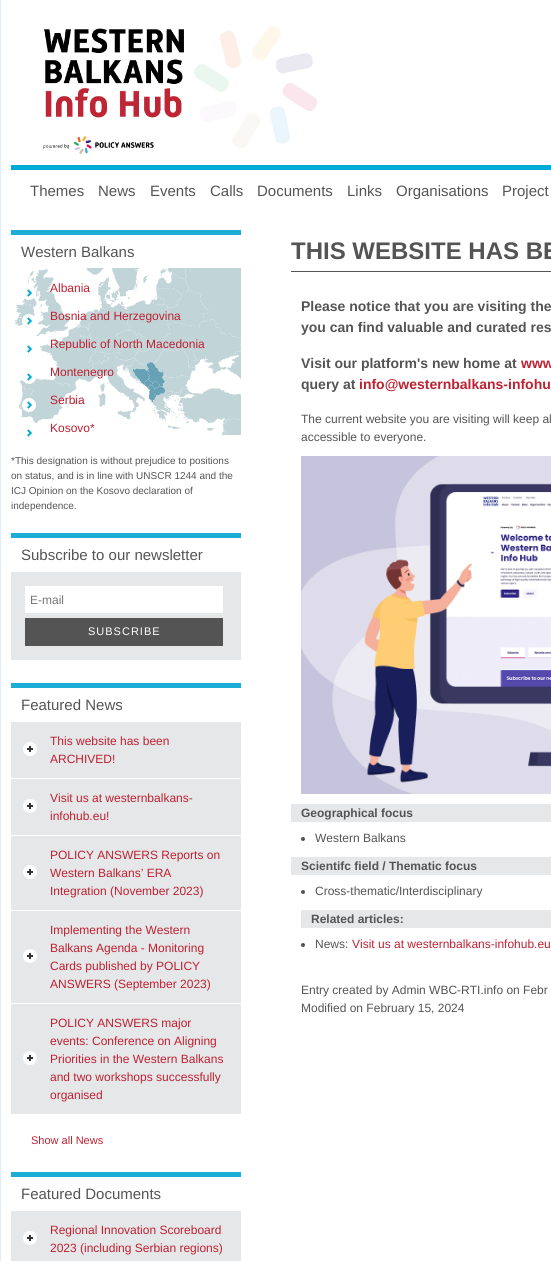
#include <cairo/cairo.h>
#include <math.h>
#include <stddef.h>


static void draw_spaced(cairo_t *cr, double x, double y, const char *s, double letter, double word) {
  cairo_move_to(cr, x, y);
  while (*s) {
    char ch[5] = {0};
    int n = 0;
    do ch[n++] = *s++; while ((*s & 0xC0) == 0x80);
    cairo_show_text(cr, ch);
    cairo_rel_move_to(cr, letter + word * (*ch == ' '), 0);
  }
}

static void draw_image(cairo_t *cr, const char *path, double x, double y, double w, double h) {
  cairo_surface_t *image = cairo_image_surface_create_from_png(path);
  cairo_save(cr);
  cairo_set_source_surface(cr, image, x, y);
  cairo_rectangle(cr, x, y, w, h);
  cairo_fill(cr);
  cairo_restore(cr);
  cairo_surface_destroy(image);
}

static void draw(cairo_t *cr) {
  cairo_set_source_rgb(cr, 1, 1, 1);
  cairo_paint(cr);
  cairo_set_source_rgb(cr, 229 / 255.0, 236 / 255.0, 249 / 255.0);
  cairo_rectangle(cr, 0, 0, 1, 1261);
  cairo_fill(cr);
  cairo_set_source_rgb(cr, 0, 172 / 255.0, 215 / 255.0);
  cairo_rectangle(cr, 11, 165, 540, 5);
  cairo_fill(cr);
  draw_image(cr, "images/1.png", 43, 26, 274, 128);
  draw_image(cr, "images/2.png", 14, 268, 227, 167);
  cairo_set_source_rgb(cr, 27 / 255.0, 173 / 255.0, 213 / 255.0);
  cairo_rectangle(cr, 11, 230, 230, 5);
  cairo_fill(cr);
  draw_image(cr, "images/3.png", 24, 286, 12, 14);
  draw_image(cr, "images/4.png", 22, 314, 12, 11);
  draw_image(cr, "images/5.png", 27, 345, 5, 8);
  draw_image(cr, "images/6.png", 22, 373, 14, 11);
  draw_image(cr, "images/7.png", 22, 398, 14, 14);
  draw_image(cr, "images/5.png", 27, 429, 5, 8);
  cairo_rectangle(cr, 11, 533, 230, 5);
  cairo_fill(cr);
  cairo_set_source_rgb(cr, 230 / 255.0, 231 / 255.0, 233 / 255.0);
  cairo_rectangle(cr, 11, 572, 230, 88);
  cairo_fill(cr);
  cairo_set_source_rgb(cr, 1, 1, 1);
  cairo_rectangle(cr, 25, 586, 198, 27);
  cairo_fill(cr);
  cairo_set_source_rgb(cr, 84 / 255.0, 84 / 255.0, 84 / 255.0);
  cairo_rectangle(cr, 25, 618, 198, 28);
  cairo_fill(cr);
  cairo_set_source_rgb(cr, 27 / 255.0, 173 / 255.0, 213 / 255.0);
  cairo_rectangle(cr, 11, 683, 230, 5);
  cairo_fill(cr);
  cairo_set_source_rgb(cr, 230 / 255.0, 231 / 255.0, 233 / 255.0);
  cairo_rectangle(cr, 11, 722, 230, 56);
  cairo_fill(cr);
  draw_image(cr, "images/8.png", 23, 742, 14, 14);
  cairo_rectangle(cr, 11, 779, 230, 56);
  cairo_fill(cr);
  draw_image(cr, "images/8.png", 23, 799, 14, 14);
  cairo_rectangle(cr, 11, 836, 230, 74);
  cairo_fill(cr);
  draw_image(cr, "images/8.png", 23, 865, 14, 14);
  cairo_rectangle(cr, 11, 911, 230, 92);
  cairo_fill(cr);
  draw_image(cr, "images/8.png", 23, 949, 14, 14);
  cairo_rectangle(cr, 11, 1004, 230, 110);
  cairo_fill(cr);
  draw_image(cr, "images/8.png", 23, 1051, 14, 14);
  cairo_set_source_rgb(cr, 27 / 255.0, 173 / 255.0, 213 / 255.0);
  cairo_rectangle(cr, 11, 1172, 230, 5);
  cairo_fill(cr);
  cairo_set_source_rgb(cr, 230 / 255.0, 231 / 255.0, 233 / 255.0);
  cairo_rectangle(cr, 11, 1211, 230, 50);
  cairo_fill(cr);
  draw_image(cr, "images/8.png", 23, 1231, 14, 14);
  cairo_set_source_rgb(cr, 84 / 255.0, 84 / 255.0, 84 / 255.0);
  cairo_rectangle(cr, 291, 271, 260, 1);
  cairo_fill(cr);
  draw_image(cr, "images/9.png", 301, 456, 250, 338);
  cairo_set_source_rgb(cr, 230 / 255.0, 231 / 255.0, 233 / 255.0);
  cairo_rectangle(cr, 291, 804, 260, 18);
  cairo_fill(cr);
  cairo_set_source_rgb(cr, 84 / 255.0, 84 / 255.0, 84 / 255.0);
  cairo_arc(cr, 303, 839, 2, 0, 2 * M_PI);
  cairo_fill(cr);
  cairo_set_source_rgb(cr, 230 / 255.0, 231 / 255.0, 233 / 255.0);
  cairo_rectangle(cr, 291, 857, 260, 18);
  cairo_fill(cr);
  cairo_set_source_rgb(cr, 84 / 255.0, 84 / 255.0, 84 / 255.0);
  cairo_arc(cr, 303, 892, 2, 0, 2 * M_PI);
  cairo_fill(cr);
  cairo_set_source_rgb(cr, 230 / 255.0, 231 / 255.0, 233 / 255.0);
  cairo_rectangle(cr, 301, 910, 250, 18);
  cairo_fill(cr);
  cairo_set_source_rgb(cr, 84 / 255.0, 84 / 255.0, 84 / 255.0);
  cairo_arc(cr, 303, 945, 2, 0, 2 * M_PI);
  cairo_fill(cr);
  cairo_select_font_face(cr, "Liberation Sans", CAIRO_FONT_SLANT_NORMAL, CAIRO_FONT_WEIGHT_NORMAL);
  cairo_set_font_size(cr, 15);
  cairo_move_to(cr, 30, 196);
  cairo_show_text(cr, "Themes");
  cairo_move_to(cr, 98, 196);
  cairo_show_text(cr, "News");
  cairo_move_to(cr, 150, 196);
  cairo_show_text(cr, "Events");
  cairo_move_to(cr, 210, 196);
  cairo_show_text(cr, "Calls");
  cairo_move_to(cr, 257, 196);
  cairo_show_text(cr, "Documents");
  cairo_move_to(cr, 347, 196);
  cairo_show_text(cr, "Links");
  cairo_move_to(cr, 396, 196);
  cairo_show_text(cr, "Organisations");
  cairo_move_to(cr, 502, 196);
  cairo_show_text(cr, "Project");
  cairo_move_to(cr, 21, 257);
  cairo_show_text(cr, "Western Balkans");
  cairo_set_font_size(cr, 12);
  cairo_set_source_rgb(cr, 189 / 255.0, 33 / 255.0, 50 / 255.0);
  cairo_move_to(cr, 50, 292);
  cairo_show_text(cr, "Albania");
  cairo_move_to(cr, 50, 320);
  cairo_show_text(cr, "Bosnia and Herzegovina");
  cairo_move_to(cr, 50, 348);
  cairo_show_text(cr, "Republic of North Macedonia");
  cairo_move_to(cr, 50, 376);
  cairo_show_text(cr, "Montenegro");
  cairo_move_to(cr, 50, 404);
  cairo_show_text(cr, "Serbia");
  cairo_move_to(cr, 50, 432);
  cairo_show_text(cr, "Kosovo*");
  cairo_set_font_size(cr, 10);
  cairo_set_source_rgb(cr, 84 / 255.0, 84 / 255.0, 84 / 255.0);
  cairo_move_to(cr, 11, 464);
  cairo_show_text(cr, "*This designation is without prejudice to positions");
  cairo_move_to(cr, 11, 479);
  cairo_show_text(cr, "on status, and is in line with UNSCR 1244 and the");
  cairo_move_to(cr, 11, 494);
  cairo_show_text(cr, "ICJ Opinion on the Kosovo declaration of");
  cairo_move_to(cr, 11, 509);
  cairo_show_text(cr, "independence.");
  cairo_set_font_size(cr, 15);
  cairo_move_to(cr, 21, 560);
  cairo_show_text(cr, "Subscribe to our newsletter");
  cairo_set_font_size(cr, 12);
  cairo_set_source_rgb(cr, 117 / 255.0, 117 / 255.0, 117 / 255.0);
  cairo_move_to(cr, 30, 604);
  cairo_show_text(cr, "E-mail");
  cairo_set_font_size(cr, 11);
  cairo_set_source_rgb(cr, 1, 1, 1);
  draw_spaced(cr, 88, 635, "SUBSCRIBE", 1, 0);
  cairo_set_font_size(cr, 15);
  cairo_set_source_rgb(cr, 84 / 255.0, 84 / 255.0, 84 / 255.0);
  cairo_move_to(cr, 21, 710);
  cairo_show_text(cr, "Featured News");
  cairo_set_font_size(cr, 12);
  cairo_set_source_rgb(cr, 189 / 255.0, 33 / 255.0, 50 / 255.0);
  cairo_move_to(cr, 50, 745);
  cairo_show_text(cr, "This website has been");
  cairo_move_to(cr, 50, 763);
  cairo_show_text(cr, "ARCHIVED!");
  cairo_move_to(cr, 50, 802);
  cairo_show_text(cr, "Visit us at westernbalkans-");
  cairo_move_to(cr, 50, 820);
  cairo_show_text(cr, "infohub.eu!");
  cairo_move_to(cr, 50, 859);
  cairo_show_text(cr, "POLICY ANSWERS Reports on");
  cairo_move_to(cr, 50, 877);
  cairo_show_text(cr, "Western Balkans’ ERA");
  cairo_move_to(cr, 50, 895);
  cairo_show_text(cr, "Integration (November 2023)");
  cairo_move_to(cr, 50, 934);
  cairo_show_text(cr, "Implementing the Western");
  cairo_move_to(cr, 50, 952);
  cairo_show_text(cr, "Balkans Agenda - Monitoring");
  cairo_move_to(cr, 50, 970);
  cairo_show_text(cr, "Cards published by POLICY");
  cairo_move_to(cr, 50, 988);
  cairo_show_text(cr, "ANSWERS (September 2023)");
  cairo_move_to(cr, 50, 1027);
  cairo_show_text(cr, "POLICY ANSWERS major");
  cairo_move_to(cr, 50, 1045);
  cairo_show_text(cr, "events: Conference on Aligning");
  cairo_move_to(cr, 50, 1063);
  cairo_show_text(cr, "Priorities in the Western Balkans");
  cairo_move_to(cr, 50, 1081);
  cairo_show_text(cr, "and two workshops successfully");
  cairo_move_to(cr, 50, 1099);
  cairo_show_text(cr, "organised");
  cairo_set_font_size(cr, 11);
  cairo_move_to(cr, 31, 1144);
  cairo_show_text(cr, "Show all News");
  cairo_set_font_size(cr, 15);
  cairo_set_source_rgb(cr, 84 / 255.0, 84 / 255.0, 84 / 255.0);
  cairo_move_to(cr, 21, 1199);
  cairo_show_text(cr, "Featured Documents");
  cairo_set_font_size(cr, 12);
  cairo_set_source_rgb(cr, 189 / 255.0, 33 / 255.0, 50 / 255.0);
  cairo_move_to(cr, 50, 1234);
  cairo_show_text(cr, "Regional Innovation Scoreboard");
  cairo_move_to(cr, 50, 1252);
  cairo_show_text(cr, "2023 (including Serbian regions)");
  cairo_select_font_face(cr, "Liberation Sans", CAIRO_FONT_SLANT_NORMAL, CAIRO_FONT_WEIGHT_BOLD);
  cairo_set_font_size(cr, 24);
  cairo_set_source_rgb(cr, 84 / 255.0, 84 / 255.0, 84 / 255.0);
  cairo_move_to(cr, 291, 259);
  cairo_show_text(cr, "THIS WEBSITE HAS BE");
  cairo_set_font_size(cr, 14);
  cairo_move_to(cr, 301, 311);
  cairo_show_text(cr, "Please notice that you are visiting the");
  cairo_move_to(cr, 301, 332);
  cairo_show_text(cr, "you can find valuable and curated res");
  cairo_move_to(cr, 301, 368);
  cairo_show_text(cr, "Visit our platform's new home at");
  cairo_set_source_rgb(cr, 189 / 255.0, 33 / 255.0, 50 / 255.0);
  cairo_move_to(cr, 521, 368);
  cairo_show_text(cr, "www");
  cairo_set_source_rgb(cr, 84 / 255.0, 84 / 255.0, 84 / 255.0);
  cairo_move_to(cr, 301, 389);
  cairo_show_text(cr, "query at");
  cairo_set_source_rgb(cr, 189 / 255.0, 33 / 255.0, 50 / 255.0);
  cairo_move_to(cr, 359, 389);
  cairo_show_text(cr, "info@westernbalkans-infohu");
  cairo_select_font_face(cr, "Liberation Sans", CAIRO_FONT_SLANT_NORMAL, CAIRO_FONT_WEIGHT_NORMAL);
  cairo_set_font_size(cr, 12);
  cairo_set_source_rgb(cr, 84 / 255.0, 84 / 255.0, 84 / 255.0);
  cairo_move_to(cr, 301, 423);
  cairo_show_text(cr, "The current website you are visiting will keep al");
  cairo_move_to(cr, 301, 441);
  cairo_show_text(cr, "accessible to everyone.");
  cairo_select_font_face(cr, "Liberation Sans", CAIRO_FONT_SLANT_NORMAL, CAIRO_FONT_WEIGHT_BOLD);
  cairo_move_to(cr, 301, 817);
  cairo_show_text(cr, "Geographical focus");
  cairo_select_font_face(cr, "Liberation Sans", CAIRO_FONT_SLANT_NORMAL, CAIRO_FONT_WEIGHT_NORMAL);
  cairo_move_to(cr, 315, 842);
  cairo_show_text(cr, "Western Balkans");
  cairo_select_font_face(cr, "Liberation Sans", CAIRO_FONT_SLANT_NORMAL, CAIRO_FONT_WEIGHT_BOLD);
  cairo_move_to(cr, 301, 870);
  cairo_show_text(cr, "Scientifc field / Thematic focus");
  cairo_select_font_face(cr, "Liberation Sans", CAIRO_FONT_SLANT_NORMAL, CAIRO_FONT_WEIGHT_NORMAL);
  cairo_move_to(cr, 315, 895);
  cairo_show_text(cr, "Cross-thematic/Interdisciplinary");
  cairo_select_font_face(cr, "Liberation Sans", CAIRO_FONT_SLANT_NORMAL, CAIRO_FONT_WEIGHT_BOLD);
  cairo_move_to(cr, 311, 923);
  cairo_show_text(cr, "Related articles:");
  cairo_select_font_face(cr, "Liberation Sans", CAIRO_FONT_SLANT_NORMAL, CAIRO_FONT_WEIGHT_NORMAL);
  cairo_move_to(cr, 315, 948);
  cairo_show_text(cr, "News:");
  cairo_set_source_rgb(cr, 189 / 255.0, 33 / 255.0, 50 / 255.0);
  cairo_move_to(cr, 352, 948);
  cairo_show_text(cr, "Visit us at westernbalkans-infohub.eu");
  cairo_set_source_rgb(cr, 84 / 255.0, 84 / 255.0, 84 / 255.0);
  cairo_move_to(cr, 301, 994);
  cairo_show_text(cr, "Entry created by Admin WBC-RTI.info on Febr");
  cairo_move_to(cr, 301, 1012);
  cairo_show_text(cr, "Modified on February 15, 2024");
}

int main(void) {
  cairo_surface_t *surface = cairo_image_surface_create(CAIRO_FORMAT_RGB24, 551, 1261);
  cairo_t *cr = cairo_create(surface);
  cairo_font_options_t *options = cairo_font_options_create();
  cairo_font_options_set_hint_metrics(options, CAIRO_HINT_METRICS_OFF);
  cairo_font_options_set_hint_style(options, CAIRO_HINT_STYLE_NONE);
  cairo_set_font_options(cr, options);
  cairo_set_miter_limit(cr, 4);
  draw(cr);
  cairo_surface_write_to_png(surface, "out.png");
  cairo_font_options_destroy(options);
  cairo_destroy(cr);
  cairo_surface_destroy(surface);
  return 0;
}
